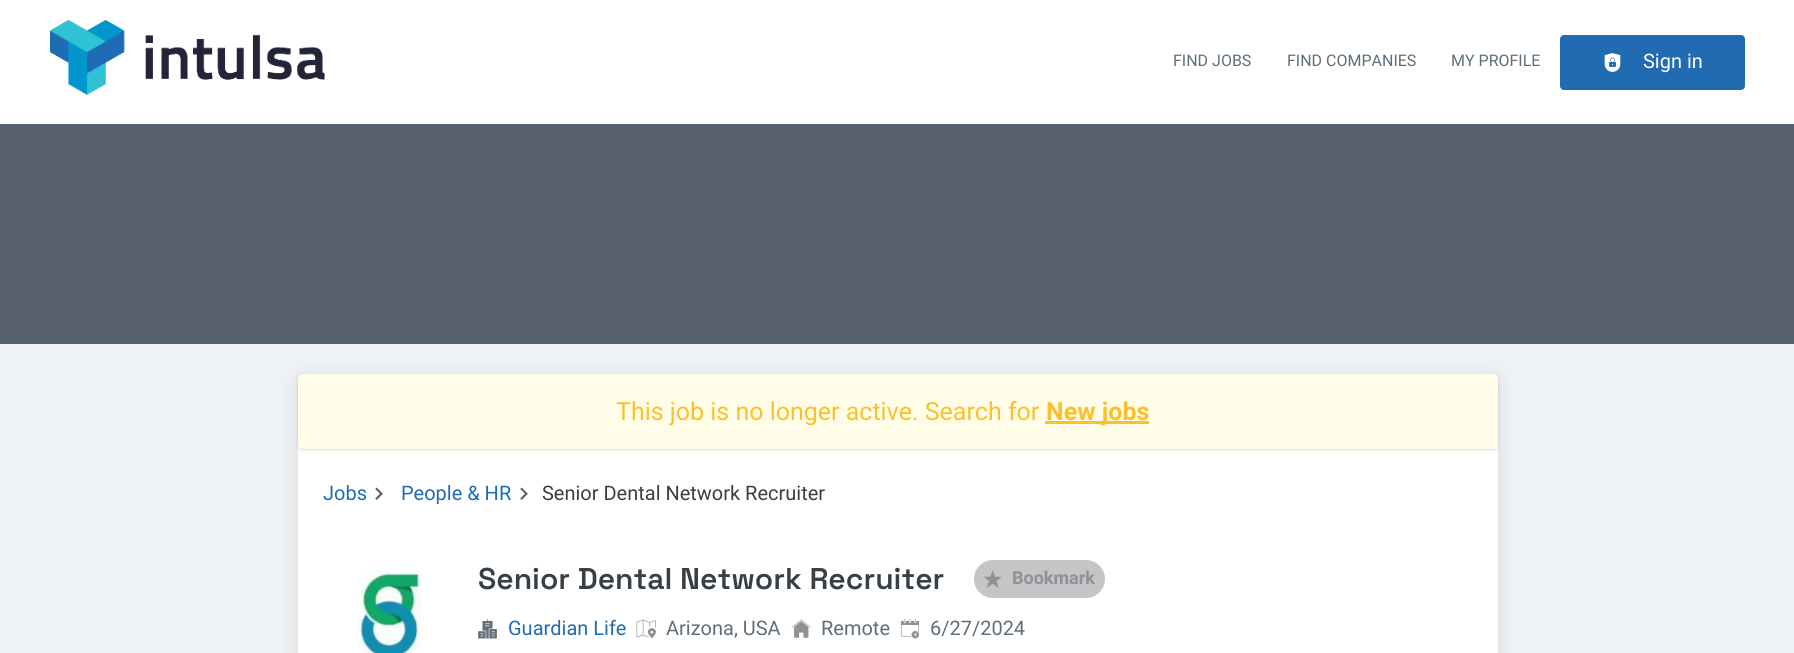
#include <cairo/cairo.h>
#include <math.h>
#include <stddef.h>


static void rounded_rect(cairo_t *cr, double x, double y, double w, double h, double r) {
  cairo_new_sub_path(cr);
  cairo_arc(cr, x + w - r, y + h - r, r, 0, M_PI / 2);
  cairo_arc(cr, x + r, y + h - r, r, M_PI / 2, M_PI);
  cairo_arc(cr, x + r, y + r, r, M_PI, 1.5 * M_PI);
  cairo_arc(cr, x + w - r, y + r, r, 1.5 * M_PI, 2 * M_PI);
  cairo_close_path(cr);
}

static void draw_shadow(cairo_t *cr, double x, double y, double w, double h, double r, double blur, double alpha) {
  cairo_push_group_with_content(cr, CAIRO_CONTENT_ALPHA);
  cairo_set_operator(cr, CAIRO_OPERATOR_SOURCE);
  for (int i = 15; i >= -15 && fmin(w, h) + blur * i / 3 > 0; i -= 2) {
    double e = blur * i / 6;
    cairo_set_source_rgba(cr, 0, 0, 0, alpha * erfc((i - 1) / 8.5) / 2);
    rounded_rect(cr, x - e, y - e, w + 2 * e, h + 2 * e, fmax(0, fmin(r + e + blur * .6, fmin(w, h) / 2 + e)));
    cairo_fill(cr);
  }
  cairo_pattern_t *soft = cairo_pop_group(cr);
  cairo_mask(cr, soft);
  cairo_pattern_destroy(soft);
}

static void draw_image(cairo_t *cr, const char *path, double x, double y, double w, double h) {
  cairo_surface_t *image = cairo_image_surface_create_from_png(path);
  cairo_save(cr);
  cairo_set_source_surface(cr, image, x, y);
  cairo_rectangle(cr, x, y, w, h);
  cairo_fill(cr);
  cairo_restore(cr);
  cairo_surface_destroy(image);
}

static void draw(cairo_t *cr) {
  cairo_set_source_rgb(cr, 239 / 255.0, 242 / 255.0, 244 / 255.0);
  cairo_paint(cr);
  cairo_set_source_rgb(cr, 1, 1, 1);
  cairo_rectangle(cr, 0, 0, 1794, 124);
  cairo_fill(cr);
  draw_image(cr, "images/1.png", 50, 20, 275, 75);
  cairo_set_source_rgb(cr, 33 / 255.0, 107 / 255.0, 178 / 255.0);
  rounded_rect(cr, 1561.5, 36.5, 182, 52, 2.5);
  cairo_fill_preserve(cr);
  cairo_set_line_width(cr, 3);
  cairo_stroke(cr);
  draw_image(cr, "images/2.png", 1604, 53, 17, 19);
  cairo_set_source_rgb(cr, 87 / 255.0, 96 / 255.0, 111 / 255.0);
  cairo_rectangle(cr, 0, 124, 1794, 220);
  cairo_fill(cr);
  cairo_set_source_rgb(cr, 0, 0, 0);
  draw_shadow(cr, 298, 378, 1200, 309, 5, 9.5, 0.1);
  cairo_set_source_rgb(cr, 1, 1, 1);
  rounded_rect(cr, 298, 374, 1200, 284, 5);
  cairo_fill(cr);
  cairo_set_source_rgb(cr, 0, 0, 0);
  draw_shadow(cr, 298, 375, 1200, 75, 5, 1, 0.06);
  draw_shadow(cr, 298, 375, 1200, 75, 5, 2, 0.1);
  cairo_set_source_rgb(cr, 1, 253 / 255.0, 231 / 255.0);
  rounded_rect(cr, 299.5, 375.5, 1197, 72, 3.5);
  cairo_fill_preserve(cr);
  cairo_stroke(cr);
  cairo_set_source_rgb(cr, 251 / 255.0, 192 / 255.0, 45 / 255.0);
  cairo_rectangle(cr, 1045, 421, 104, 3);
  cairo_fill(cr);
  draw_image(cr, "images/3.png", 375, 487, 8, 13);
  draw_image(cr, "images/3.png", 520, 487, 8, 13);
  draw_image(cr, "images/4.png", 358, 570, 65, 83);
  cairo_set_source_rgb(cr, 196 / 255.0, 197 / 255.0, 199 / 255.0);
  rounded_rect(cr, 974, 560, 131, 38, 19);
  cairo_fill(cr);
  draw_image(cr, "images/5.png", 984, 570, 17, 18);
  draw_image(cr, "images/6.png", 478, 619, 19, 20);
  draw_image(cr, "images/7.png", 636, 619, 20, 19);
  draw_image(cr, "images/8.png", 791, 619, 20, 19);
  draw_image(cr, "images/9.png", 900, 619, 20, 20);
  cairo_select_font_face(cr, "Roboto", CAIRO_FONT_SLANT_NORMAL, CAIRO_FONT_WEIGHT_NORMAL);
  cairo_set_font_size(cr, 16);
  cairo_set_source_rgb(cr, 95 / 255.0, 110 / 255.0, 120 / 255.0);
  cairo_move_to(cr, 1173, 66);
  cairo_show_text(cr, "FIND JOBS");
  cairo_move_to(cr, 1287, 66);
  cairo_show_text(cr, "FIND COMPANIES");
  cairo_move_to(cr, 1451, 66);
  cairo_show_text(cr, "MY PROFILE");
  cairo_set_font_size(cr, 20);
  cairo_set_source_rgb(cr, 1, 1, 1);
  cairo_move_to(cr, 1643, 68);
  cairo_show_text(cr, "Sign in");
  cairo_set_font_size(cr, 25);
  cairo_set_source_rgb(cr, 251 / 255.0, 192 / 255.0, 45 / 255.0);
  cairo_move_to(cr, 616, 420);
  cairo_show_text(cr, "This job is no longer active. Search for");
  cairo_select_font_face(cr, "Roboto", CAIRO_FONT_SLANT_NORMAL, CAIRO_FONT_WEIGHT_BOLD);
  cairo_move_to(cr, 1046, 420);
  cairo_show_text(cr, "New jobs");
  cairo_select_font_face(cr, "Roboto", CAIRO_FONT_SLANT_NORMAL, CAIRO_FONT_WEIGHT_NORMAL);
  cairo_set_font_size(cr, 20);
  cairo_set_source_rgb(cr, 33 / 255.0, 107 / 255.0, 178 / 255.0);
  cairo_move_to(cr, 323, 500);
  cairo_show_text(cr, "Jobs");
  cairo_move_to(cr, 401, 500);
  cairo_show_text(cr, "People & HR");
  cairo_set_source_rgb(cr, 55 / 255.0, 64 / 255.0, 71 / 255.0);
  cairo_move_to(cr, 542, 500);
  cairo_show_text(cr, "Senior Dental Network Recruiter");
  cairo_select_font_face(cr, "Space Grotesk SemiBold", CAIRO_FONT_SLANT_NORMAL, CAIRO_FONT_WEIGHT_NORMAL);
  cairo_set_font_size(cr, 30);
  cairo_move_to(cr, 478, 589);
  cairo_show_text(cr, "Senior Dental Network Recruiter");
  cairo_select_font_face(cr, "Roboto", CAIRO_FONT_SLANT_NORMAL, CAIRO_FONT_WEIGHT_BOLD);
  cairo_set_font_size(cr, 18);
  cairo_set_source_rgb(cr, 144 / 255.0, 145 / 255.0, 149 / 255.0);
  cairo_move_to(cr, 1012, 584);
  cairo_show_text(cr, "Bookmark");
  cairo_select_font_face(cr, "Roboto", CAIRO_FONT_SLANT_NORMAL, CAIRO_FONT_WEIGHT_NORMAL);
  cairo_set_font_size(cr, 20);
  cairo_set_source_rgb(cr, 33 / 255.0, 107 / 255.0, 178 / 255.0);
  cairo_move_to(cr, 508, 635);
  cairo_show_text(cr, "Guardian Life");
  cairo_set_source_rgb(cr, 95 / 255.0, 110 / 255.0, 120 / 255.0);
  cairo_move_to(cr, 666, 635);
  cairo_show_text(cr, "Arizona, USA");
  cairo_move_to(cr, 821, 635);
  cairo_show_text(cr, "Remote");
  cairo_move_to(cr, 930, 635);
  cairo_show_text(cr, "6/27/2024");
}

int main(void) {
  cairo_surface_t *surface = cairo_image_surface_create(CAIRO_FORMAT_RGB24, 1794, 653);
  cairo_t *cr = cairo_create(surface);
  cairo_font_options_t *options = cairo_font_options_create();
  cairo_font_options_set_hint_metrics(options, CAIRO_HINT_METRICS_OFF);
  cairo_font_options_set_hint_style(options, CAIRO_HINT_STYLE_NONE);
  cairo_set_font_options(cr, options);
  cairo_set_miter_limit(cr, 4);
  draw(cr);
  cairo_surface_write_to_png(surface, "out.png");
  cairo_font_options_destroy(options);
  cairo_destroy(cr);
  cairo_surface_destroy(surface);
  return 0;
}
